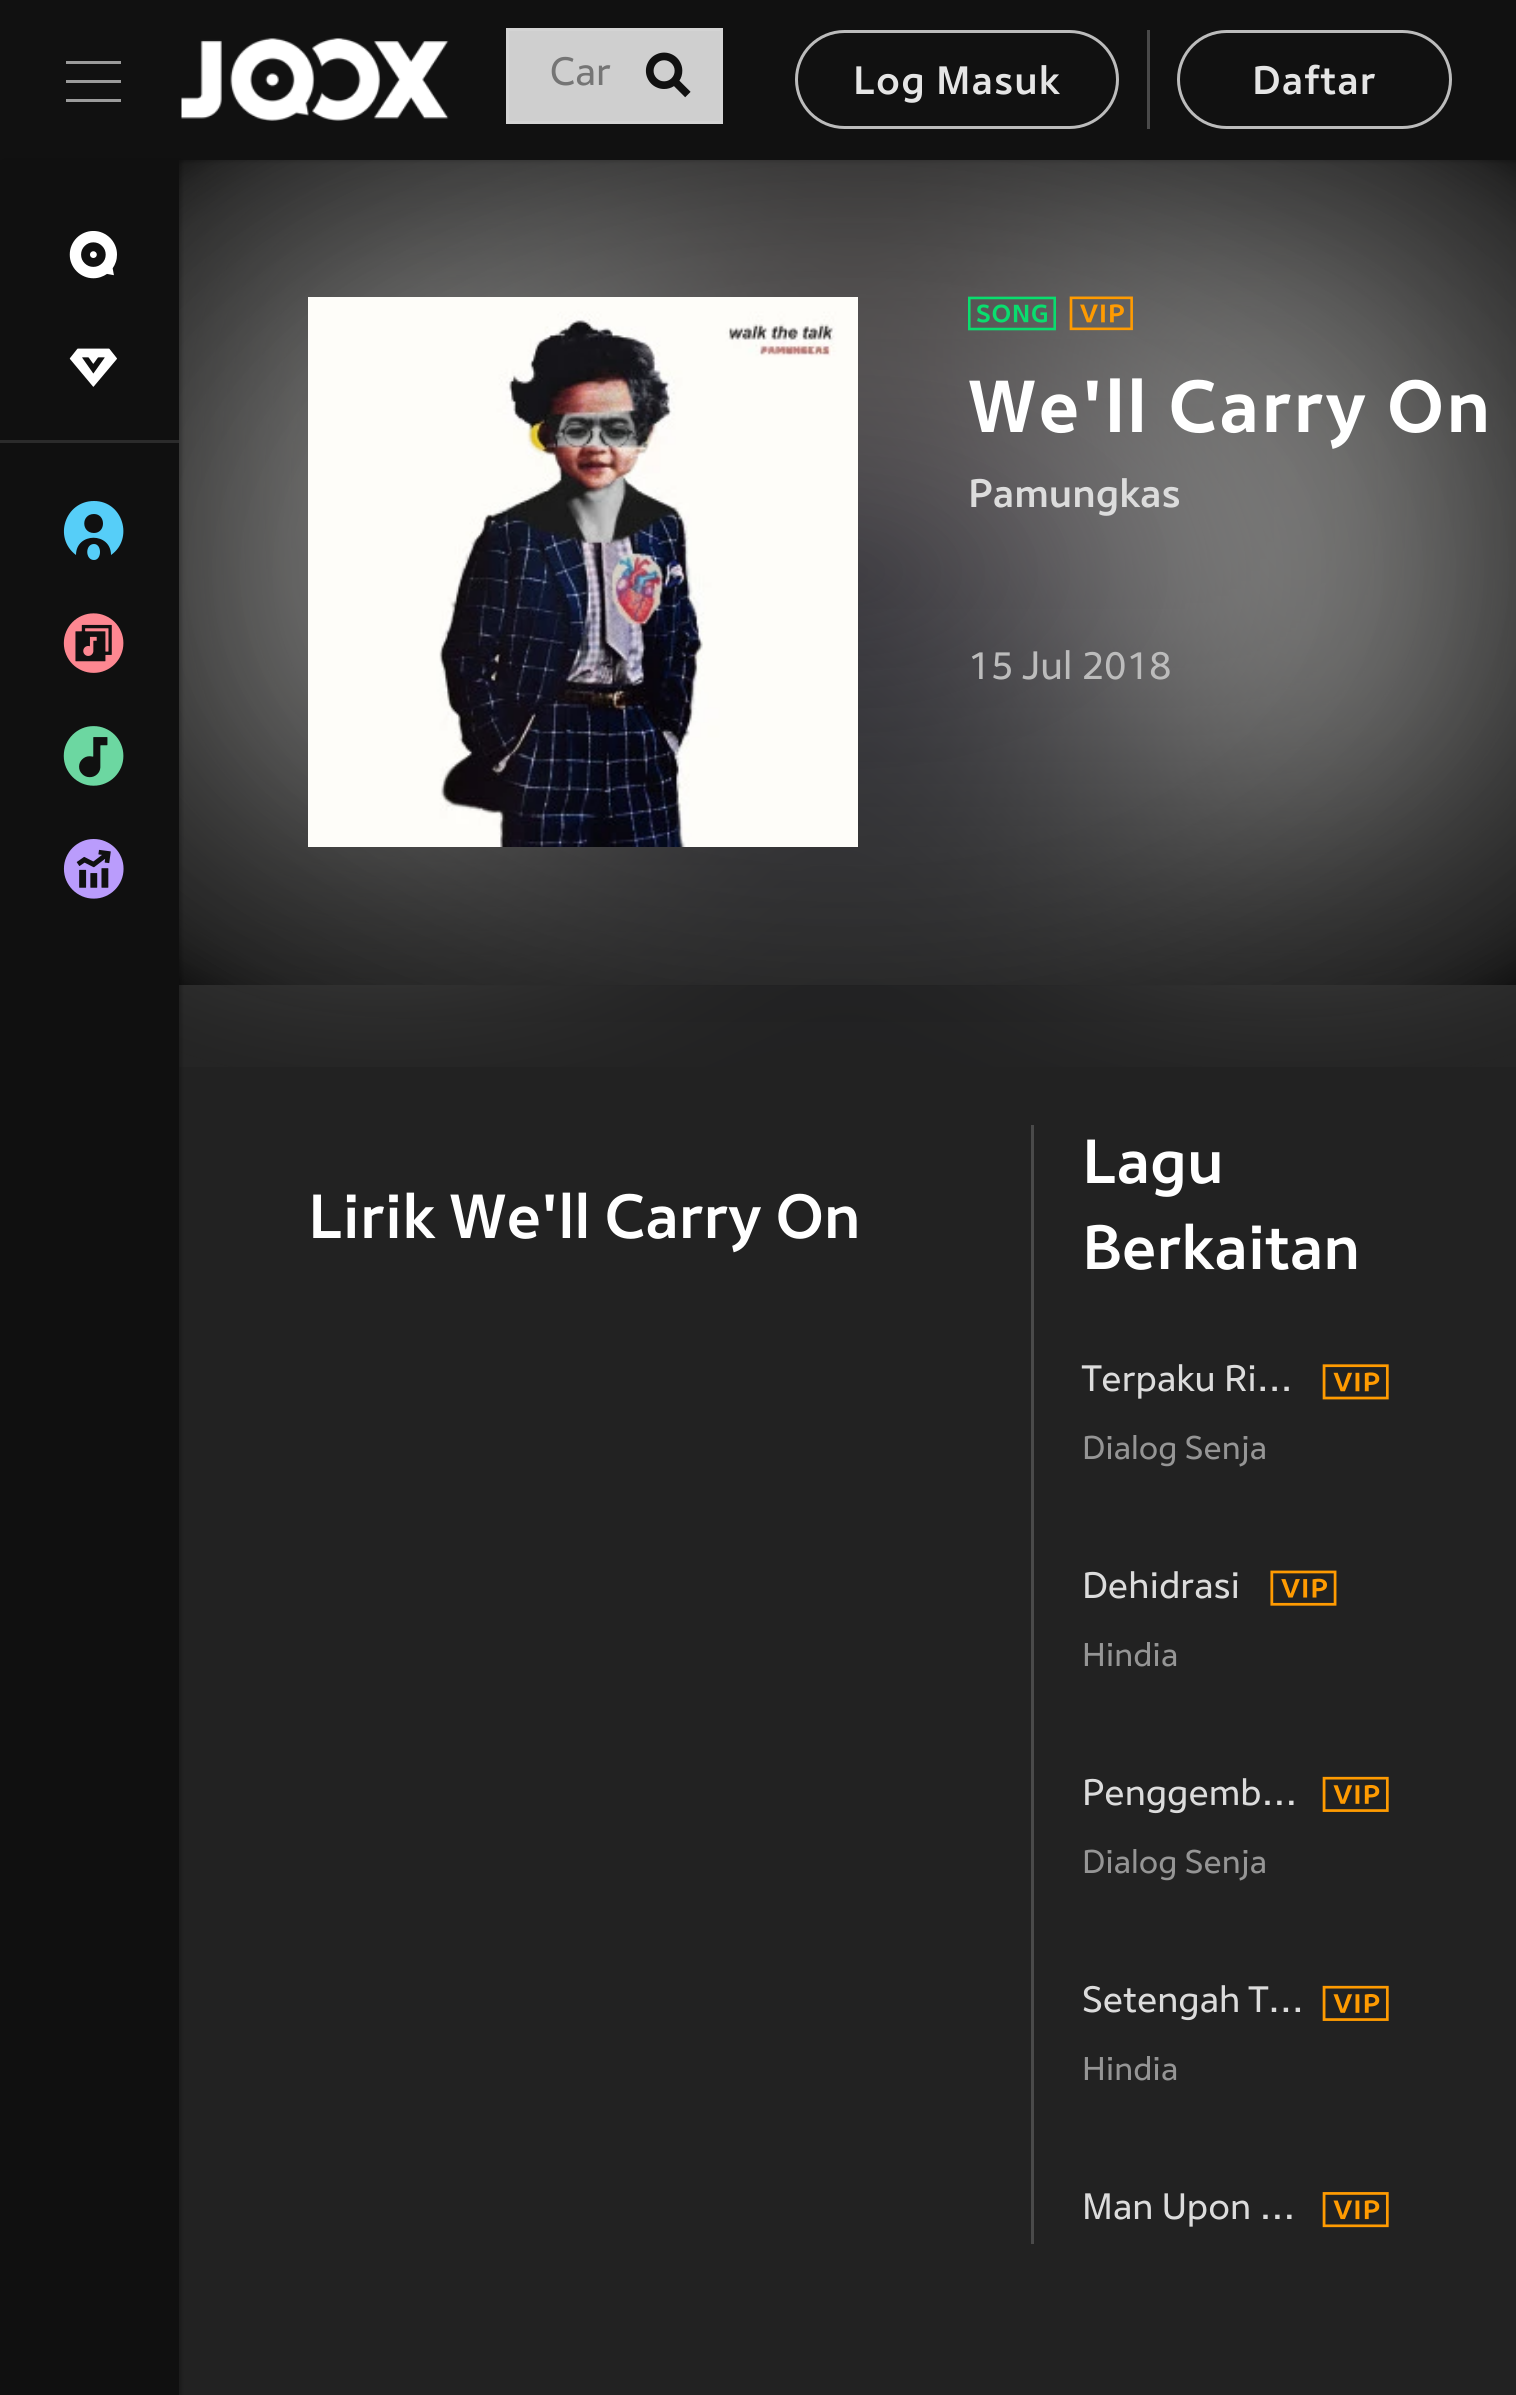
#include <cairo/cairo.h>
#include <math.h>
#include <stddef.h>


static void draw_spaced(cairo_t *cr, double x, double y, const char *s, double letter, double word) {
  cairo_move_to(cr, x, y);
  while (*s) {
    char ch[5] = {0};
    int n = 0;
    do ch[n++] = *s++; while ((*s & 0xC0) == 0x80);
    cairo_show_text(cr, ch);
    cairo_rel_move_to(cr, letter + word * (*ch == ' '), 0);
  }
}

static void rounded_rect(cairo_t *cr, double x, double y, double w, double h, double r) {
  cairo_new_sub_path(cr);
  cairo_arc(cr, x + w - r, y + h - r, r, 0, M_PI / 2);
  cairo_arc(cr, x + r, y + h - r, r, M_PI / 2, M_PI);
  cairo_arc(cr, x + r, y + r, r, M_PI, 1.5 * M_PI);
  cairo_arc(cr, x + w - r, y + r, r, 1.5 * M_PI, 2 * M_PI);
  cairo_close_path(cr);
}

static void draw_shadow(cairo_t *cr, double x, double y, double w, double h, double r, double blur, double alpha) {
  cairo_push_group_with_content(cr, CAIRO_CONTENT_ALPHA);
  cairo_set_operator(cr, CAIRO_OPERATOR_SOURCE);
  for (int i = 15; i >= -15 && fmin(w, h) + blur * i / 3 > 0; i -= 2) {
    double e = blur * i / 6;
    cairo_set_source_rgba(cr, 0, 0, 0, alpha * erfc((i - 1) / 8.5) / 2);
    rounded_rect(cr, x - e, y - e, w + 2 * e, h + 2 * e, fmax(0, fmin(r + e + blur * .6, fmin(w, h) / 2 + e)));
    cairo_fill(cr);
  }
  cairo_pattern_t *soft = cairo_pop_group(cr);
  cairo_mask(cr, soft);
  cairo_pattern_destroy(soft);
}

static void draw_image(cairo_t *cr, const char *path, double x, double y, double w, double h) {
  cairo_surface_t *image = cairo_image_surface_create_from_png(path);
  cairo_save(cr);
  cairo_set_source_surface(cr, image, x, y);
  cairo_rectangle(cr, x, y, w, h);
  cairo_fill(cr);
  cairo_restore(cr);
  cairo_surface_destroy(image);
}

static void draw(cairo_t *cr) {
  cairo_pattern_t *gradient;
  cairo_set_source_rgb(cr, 34 / 255.0, 34 / 255.0, 34 / 255.0);
  cairo_paint(cr);
  draw_image(cr, "images/8.png", 179, 160, 1337, 907);
  cairo_set_source_rgb(cr, 0, 0, 0);
  draw_shadow(cr, 0, 3, 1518, 159, 0, 1.5, 0.2);
  cairo_set_source_rgb(cr, 17 / 255.0, 17 / 255.0, 17 / 255.0);
  cairo_rectangle(cr, 0, 0, 1516, 160);
  cairo_fill(cr);
  cairo_set_source_rgb(cr, 155 / 255.0, 155 / 255.0, 155 / 255.0);
  cairo_rectangle(cr, 66, 61, 55, 3);
  cairo_fill(cr);
  cairo_rectangle(cr, 66, 80, 55, 3);
  cairo_fill(cr);
  cairo_rectangle(cr, 66, 99, 55, 3);
  cairo_fill(cr);
  draw_image(cr, "images/1.png", 181, 38, 268, 83);
  cairo_set_source_rgb(cr, 207 / 255.0, 207 / 255.0, 207 / 255.0);
  cairo_rectangle(cr, 507.5, 29.5, 214, 93);
  cairo_fill_preserve(cr);
  cairo_set_source_rgb(cr, 212 / 255.0, 212 / 255.0, 212 / 255.0);
  cairo_set_line_width(cr, 3);
  cairo_stroke(cr);
  draw_image(cr, "images/2.png", 645, 52, 46, 46);
  rounded_rect(cr, 796.5, 31.5, 321, 96, 48);
  cairo_set_source_rgb(cr, 188 / 255.0, 188 / 255.0, 188 / 255.0);
  cairo_stroke(cr);
  cairo_set_source_rgb(cr, 74 / 255.0, 74 / 255.0, 74 / 255.0);
  cairo_rectangle(cr, 1147, 30, 3, 99);
  cairo_fill(cr);
  rounded_rect(cr, 1178.5, 31.5, 272, 96, 48);
  cairo_set_source_rgb(cr, 188 / 255.0, 188 / 255.0, 188 / 255.0);
  cairo_stroke(cr);
  gradient = cairo_pattern_create_radial(0, 0, 0, 0, 0, 1);
  cairo_pattern_set_matrix(gradient, &(cairo_matrix_t){1.0 / 947, 0, 0, 1.0 / 583, -1.0 * 848 / 947, -1.0 * 572 / 583});
  cairo_pattern_add_color_stop_rgba(gradient, 0, 153 / 255.0, 153 / 255.0, 153 / 255.0, 0.11);
  cairo_pattern_add_color_stop_rgba(gradient, 0.01, 153 / 255.0, 153 / 255.0, 153 / 255.0, 0.11);
  cairo_pattern_add_color_stop_rgba(gradient, 0.76, 43 / 255.0, 43 / 255.0, 43 / 255.0, 0.48);
  cairo_pattern_add_color_stop_rgba(gradient, 0.91, 28 / 255.0, 28 / 255.0, 28 / 255.0, 0.56);
  cairo_pattern_add_color_stop_rgba(gradient, 0.96, 17 / 255.0, 17 / 255.0, 17 / 255.0, 0.58);
  cairo_pattern_add_color_stop_rgba(gradient, 1, 0, 0, 0, 0.6);
  cairo_set_source(cr, gradient);
  cairo_pattern_destroy(gradient);
  cairo_rectangle(cr, 179, 160, 1337, 825);
  cairo_fill(cr);
  cairo_set_source_rgb(cr, 0, 0, 0);
  draw_shadow(cr, 3, 160, 179, 2235, 0, 1.5, 0.2);
  cairo_set_source_rgb(cr, 16 / 255.0, 16 / 255.0, 16 / 255.0);
  cairo_rectangle(cr, 0, 160, 179, 2235);
  cairo_fill(cr);
  cairo_set_source_rgb(cr, 43 / 255.0, 43 / 255.0, 43 / 255.0);
  cairo_rectangle(cr, 0, 440, 179, 3);
  cairo_fill(cr);
  draw_image(cr, "images/3.png", 69, 231, 48, 48);
  draw_image(cr, "images/4.png", 69, 348, 48, 39);
  cairo_set_source_rgb(cr, 86 / 255.0, 206 / 255.0, 248 / 255.0);
  cairo_new_path(cr);
  cairo_move_to(cr, 94, 501);
  cairo_curve_to(cr, 65, 501, 53, 538, 76, 555);
  cairo_curve_to(cr, 76, 532, 111, 532, 111, 555);
  cairo_curve_to(cr, 134, 539, 123, 501, 94, 501);
  cairo_close_path(cr);
  cairo_move_to(cr, 94, 533);
  cairo_curve_to(cr, 81, 533, 81, 514, 94, 514);
  cairo_curve_to(cr, 106, 514, 106, 533, 94, 533);
  cairo_close_path(cr);
  cairo_move_to(cr, 94, 544);
  cairo_curve_to(cr, 85, 544, 85, 560, 94, 560);
  cairo_curve_to(cr, 98, 560, 100, 556, 100, 552);
  cairo_curve_to(cr, 100, 548, 98, 544, 94, 544);
  cairo_close_path(cr);
  cairo_fill(cr);
  draw_image(cr, "images/5.png", 63, 613, 61, 60);
  draw_image(cr, "images/6.png", 63, 726, 61, 60);
  draw_image(cr, "images/7.png", 63, 839, 61, 60);
  draw_image(cr, "images/9.png", 308, 297, 550, 550);
  draw_image(cr, "images/10.png", 968, 296, 88, 35);
  draw_image(cr, "images/11.png", 1069, 296, 64, 35);
  cairo_set_source_rgb(cr, 74 / 255.0, 74 / 255.0, 74 / 255.0);
  cairo_rectangle(cr, 1031, 1125, 3, 1119);
  cairo_fill(cr);
  draw_image(cr, "images/12.png", 1322, 1364, 67, 36);
  draw_image(cr, "images/13.png", 1270, 1570, 67, 36);
  draw_image(cr, "images/14.png", 1322, 1776, 67, 36);
  draw_image(cr, "images/14.png", 1322, 1985, 67, 36);
  draw_image(cr, "images/15.png", 1322, 2192, 67, 36);
  cairo_select_font_face(cr, "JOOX", CAIRO_FONT_SLANT_NORMAL, CAIRO_FONT_WEIGHT_NORMAL);
  cairo_set_font_size(cr, 38.5);
  cairo_set_source_rgb(cr, 117 / 255.0, 117 / 255.0, 117 / 255.0);
  cairo_move_to(cr, 550, 85);
  cairo_show_text(cr, "Car");
  cairo_select_font_face(cr, "JOOX Medium", CAIRO_FONT_SLANT_NORMAL, CAIRO_FONT_WEIGHT_NORMAL);
  cairo_set_source_rgb(cr, 229 / 255.0, 229 / 255.0, 229 / 255.0);
  draw_spaced(cr, 853, 94, "Log Masuk", 1.1, 0);
  draw_spaced(cr, 1252, 94, "Daftar", 1.1, 0);
  cairo_select_font_face(cr, "JOOX", CAIRO_FONT_SLANT_NORMAL, CAIRO_FONT_WEIGHT_BOLD);
  cairo_set_font_size(cr, 71.5);
  cairo_set_source_rgb(cr, 1, 1, 1);
  draw_spaced(cr, 968, 432, "We'll Carry On", 2.25, 0);
  cairo_select_font_face(cr, "JOOX Medium", CAIRO_FONT_SLANT_NORMAL, CAIRO_FONT_WEIGHT_NORMAL);
  cairo_set_font_size(cr, 38.5);
  cairo_set_source_rgb(cr, 220 / 255.0, 220 / 255.0, 220 / 255.0);
  cairo_move_to(cr, 968, 507);
  cairo_show_text(cr, "Pamungkas");
  cairo_select_font_face(cr, "JOOX", CAIRO_FONT_SLANT_NORMAL, CAIRO_FONT_WEIGHT_NORMAL);
  cairo_set_source_rgb(cr, 188 / 255.0, 188 / 255.0, 188 / 255.0);
  cairo_move_to(cr, 968, 679);
  cairo_show_text(cr, "15 Jul 2018");
  cairo_select_font_face(cr, "JOOX Medium", CAIRO_FONT_SLANT_NORMAL, CAIRO_FONT_WEIGHT_NORMAL);
  cairo_set_font_size(cr, 60.5);
  cairo_set_source_rgb(cr, 1, 1, 1);
  cairo_move_to(cr, 308, 1238);
  cairo_show_text(cr, "Lirik We'll Carry On");
  cairo_move_to(cr, 1082, 1183);
  cairo_show_text(cr, "Lagu");
  cairo_move_to(cr, 1082, 1269);
  cairo_show_text(cr, "Berkaitan");
  cairo_select_font_face(cr, "JOOX", CAIRO_FONT_SLANT_NORMAL, CAIRO_FONT_WEIGHT_NORMAL);
  cairo_set_font_size(cr, 35.75);
  cairo_set_source_rgb(cr, 220 / 255.0, 220 / 255.0, 220 / 255.0);
  cairo_move_to(cr, 1082, 1391);
  cairo_show_text(cr, "Terpaku Ri…");
  cairo_set_font_size(cr, 32);
  cairo_set_source_rgb(cr, 149 / 255.0, 149 / 255.0, 149 / 255.0);
  cairo_move_to(cr, 1082, 1459);
  cairo_show_text(cr, "Dialog Senja");
  cairo_set_font_size(cr, 35.75);
  cairo_set_source_rgb(cr, 220 / 255.0, 220 / 255.0, 220 / 255.0);
  cairo_move_to(cr, 1082, 1598);
  cairo_show_text(cr, "Dehidrasi");
  cairo_set_font_size(cr, 32);
  cairo_set_source_rgb(cr, 149 / 255.0, 149 / 255.0, 149 / 255.0);
  cairo_move_to(cr, 1082, 1666);
  cairo_show_text(cr, "Hindia");
  cairo_set_font_size(cr, 35.75);
  cairo_set_source_rgb(cr, 220 / 255.0, 220 / 255.0, 220 / 255.0);
  cairo_move_to(cr, 1082, 1805);
  cairo_show_text(cr, "Penggemb…");
  cairo_set_font_size(cr, 32);
  cairo_set_source_rgb(cr, 149 / 255.0, 149 / 255.0, 149 / 255.0);
  cairo_move_to(cr, 1082, 1873);
  cairo_show_text(cr, "Dialog Senja");
  cairo_set_font_size(cr, 35.75);
  cairo_set_source_rgb(cr, 220 / 255.0, 220 / 255.0, 220 / 255.0);
  cairo_move_to(cr, 1082, 2012);
  cairo_show_text(cr, "Setengah T…");
  cairo_set_font_size(cr, 32);
  cairo_set_source_rgb(cr, 149 / 255.0, 149 / 255.0, 149 / 255.0);
  cairo_move_to(cr, 1082, 2080);
  cairo_show_text(cr, "Hindia");
  cairo_set_font_size(cr, 35.75);
  cairo_set_source_rgb(cr, 220 / 255.0, 220 / 255.0, 220 / 255.0);
  cairo_move_to(cr, 1082, 2219);
  cairo_show_text(cr, "Man Upon …");
}

int main(void) {
  cairo_surface_t *surface = cairo_image_surface_create(CAIRO_FORMAT_RGB24, 1516, 2395);
  cairo_t *cr = cairo_create(surface);
  cairo_font_options_t *options = cairo_font_options_create();
  cairo_font_options_set_hint_metrics(options, CAIRO_HINT_METRICS_OFF);
  cairo_font_options_set_hint_style(options, CAIRO_HINT_STYLE_NONE);
  cairo_set_font_options(cr, options);
  cairo_set_miter_limit(cr, 4);
  draw(cr);
  cairo_surface_write_to_png(surface, "out.png");
  cairo_font_options_destroy(options);
  cairo_destroy(cr);
  cairo_surface_destroy(surface);
  return 0;
}
